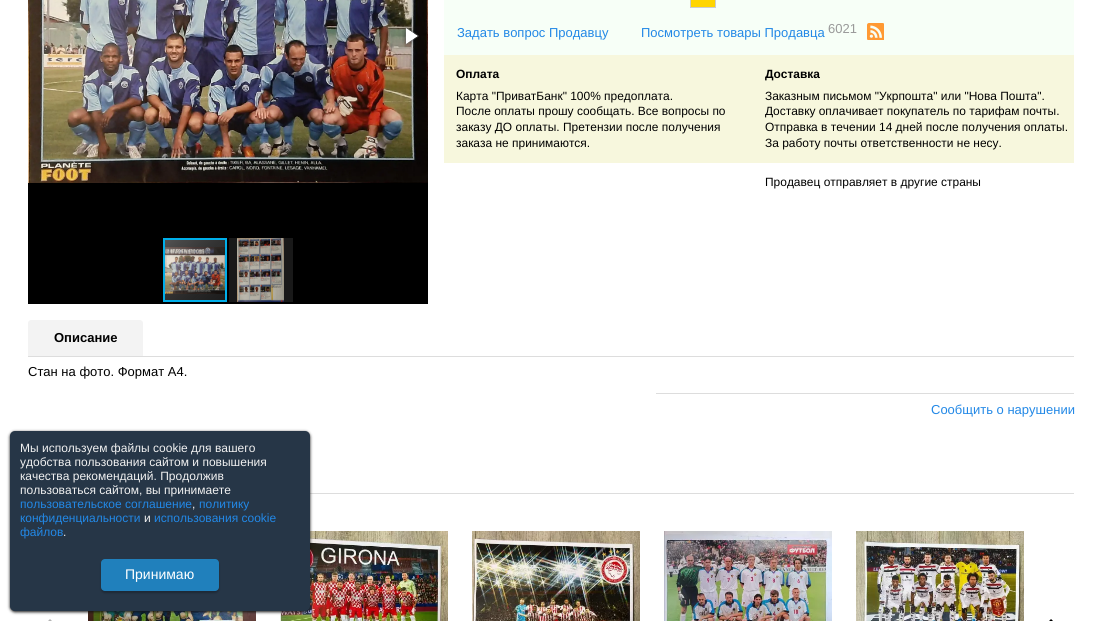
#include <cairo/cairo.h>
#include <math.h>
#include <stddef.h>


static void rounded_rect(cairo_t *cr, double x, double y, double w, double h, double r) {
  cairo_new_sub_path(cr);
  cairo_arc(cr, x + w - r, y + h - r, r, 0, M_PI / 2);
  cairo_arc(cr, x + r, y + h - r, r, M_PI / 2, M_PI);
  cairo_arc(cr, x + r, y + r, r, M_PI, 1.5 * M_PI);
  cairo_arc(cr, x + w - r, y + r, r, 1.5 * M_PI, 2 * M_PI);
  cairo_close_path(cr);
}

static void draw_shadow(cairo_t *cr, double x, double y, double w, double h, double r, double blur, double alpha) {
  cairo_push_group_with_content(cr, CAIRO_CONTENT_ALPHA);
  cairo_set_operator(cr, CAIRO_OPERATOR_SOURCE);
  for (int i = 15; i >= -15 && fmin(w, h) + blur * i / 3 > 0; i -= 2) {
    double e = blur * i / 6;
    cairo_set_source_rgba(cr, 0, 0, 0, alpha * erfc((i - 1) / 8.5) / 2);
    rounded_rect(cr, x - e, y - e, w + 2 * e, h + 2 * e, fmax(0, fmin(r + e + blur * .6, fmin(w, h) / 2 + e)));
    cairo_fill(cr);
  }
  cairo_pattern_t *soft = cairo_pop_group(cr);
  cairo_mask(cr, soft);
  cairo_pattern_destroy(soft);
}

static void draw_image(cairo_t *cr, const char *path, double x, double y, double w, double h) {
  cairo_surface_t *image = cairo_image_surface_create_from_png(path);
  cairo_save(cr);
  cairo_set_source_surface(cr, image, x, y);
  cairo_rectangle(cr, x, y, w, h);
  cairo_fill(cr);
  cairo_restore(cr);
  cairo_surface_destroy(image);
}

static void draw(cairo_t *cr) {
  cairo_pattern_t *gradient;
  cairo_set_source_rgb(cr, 1, 1, 1);
  cairo_paint(cr);
  cairo_set_source_rgb(cr, 0, 0, 0);
  cairo_rectangle(cr, 28, 183, 400, 121);
  cairo_fill(cr);
  draw_image(cr, "images/1.png", 28, 0, 400, 183);
  draw_image(cr, "images/2.png", 38, 28, 13, 16);
  draw_image(cr, "images/3.png", 402, 26, 17, 20);
  cairo_set_source_rgb(cr, 25 / 255.0, 25 / 255.0, 25 / 255.0);
  cairo_rectangle(cr, 165, 240, 60, 60);
  cairo_fill(cr);
  draw_image(cr, "images/5.png", 165, 247, 60, 47);
  gradient = cairo_pattern_create_linear(165, 240, 225, 300);
  cairo_pattern_add_color_stop_rgba(gradient, 0, 1, 1, 1, 0.25);
  cairo_pattern_add_color_stop_rgba(gradient, 1, 64 / 255.0, 64 / 255.0, 64 / 255.0, 0.1);
  cairo_set_source(cr, gradient);
  cairo_pattern_destroy(gradient);
  cairo_rectangle(cr, 165, 240, 60, 60);
  cairo_fill(cr);
  cairo_rectangle(cr, 164, 239, 62, 62);
  cairo_set_source_rgb(cr, 0, 175 / 255.0, 234 / 255.0);
  cairo_stroke(cr);
  cairo_set_source_rgb(cr, 25 / 255.0, 25 / 255.0, 25 / 255.0);
  cairo_rectangle(cr, 229, 238, 64, 64);
  cairo_fill(cr);
  draw_image(cr, "images/4.png", 237, 238, 47, 64);
  cairo_set_source_rgb(cr, 247 / 255.0, 1, 247 / 255.0);
  cairo_rectangle(cr, 444, 0, 630, 55);
  cairo_fill(cr);
  cairo_rectangle(cr, 690.5, -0.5, 25, 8);
  cairo_set_source_rgb(cr, 204 / 255.0, 204 / 255.0, 204 / 255.0);
  cairo_set_line_width(cr, 1);
  cairo_stroke(cr);
  cairo_set_source_rgb(cr, 1, 213 / 255.0, 0);
  cairo_rectangle(cr, 691, 0, 24, 7);
  cairo_fill(cr);
  draw_image(cr, "images/6.png", 867, 23, 17, 17);
  cairo_set_source_rgb(cr, 247 / 255.0, 247 / 255.0, 221 / 255.0);
  cairo_rectangle(cr, 444, 55, 630, 108);
  cairo_fill(cr);
  cairo_set_source_rgb(cr, 221 / 255.0, 221 / 255.0, 221 / 255.0);
  cairo_rectangle(cr, 28, 356, 1046, 1);
  cairo_fill(cr);
  cairo_set_source_rgb(cr, 243 / 255.0, 243 / 255.0, 243 / 255.0);
  cairo_new_path(cr);
  cairo_move_to(cr, 31, 320);
  cairo_line_to(cr, 140, 320);
  cairo_curve_to(cr, 141.5, 320, 143, 321.5, 143, 323);
  cairo_line_to(cr, 143, 356);
  cairo_line_to(cr, 28, 356);
  cairo_line_to(cr, 28, 323);
  cairo_curve_to(cr, 28, 321.5, 29.5, 320, 31, 320);
  cairo_close_path(cr);
  cairo_fill(cr);
  cairo_set_source_rgb(cr, 221 / 255.0, 221 / 255.0, 221 / 255.0);
  cairo_rectangle(cr, 656, 393, 418, 1);
  cairo_fill(cr);
  cairo_rectangle(cr, 310, 493, 764, 1);
  cairo_fill(cr);
  draw_image(cr, "images/7.png", 48, 619, 4, 2);
  draw_image(cr, "images/8.png", 88, 611, 168, 10);
  draw_image(cr, "images/9.png", 280, 531, 168, 90);
  draw_image(cr, "images/10.png", 472, 531, 168, 90);
  draw_image(cr, "images/11.png", 664, 531, 168, 90);
  draw_image(cr, "images/12.png", 856, 531, 168, 90);
  draw_image(cr, "images/13.png", 1049, 619, 4, 2);
  cairo_set_source_rgb(cr, 17 / 255.0, 17 / 255.0, 17 / 255.0);
  draw_shadow(cr, 10, 432, 300, 180, 5, 1.5, 1);
  cairo_set_source_rgb(cr, 38 / 255.0, 54 / 255.0, 71 / 255.0);
  rounded_rect(cr, 10, 431, 300, 180, 5);
  cairo_fill(cr);
  cairo_set_source_rgb(cr, 0, 0, 0);
  draw_shadow(cr, 101, 561, 118, 32, 4, 1, 0.25);
  cairo_set_source_rgb(cr, 32 / 255.0, 128 / 255.0, 188 / 255.0);
  rounded_rect(cr, 101, 559, 118, 32, 4);
  cairo_fill(cr);
  cairo_select_font_face(cr, "Liberation Sans", CAIRO_FONT_SLANT_NORMAL, CAIRO_FONT_WEIGHT_NORMAL);
  cairo_set_font_size(cr, 13);
  cairo_set_source_rgb(cr, 34 / 255.0, 136 / 255.0, 230 / 255.0);
  cairo_move_to(cr, 457, 37);
  cairo_show_text(cr, "Задать вопрос Продавцу");
  cairo_move_to(cr, 641, 37);
  cairo_show_text(cr, "Посмотреть товары Продавца");
  cairo_set_source_rgb(cr, 153 / 255.0, 153 / 255.0, 153 / 255.0);
  cairo_move_to(cr, 828, 33);
  cairo_show_text(cr, "6021");
  cairo_select_font_face(cr, "Liberation Sans", CAIRO_FONT_SLANT_NORMAL, CAIRO_FONT_WEIGHT_BOLD);
  cairo_set_font_size(cr, 11.95);
  cairo_set_source_rgb(cr, 0, 0, 0);
  cairo_move_to(cr, 456, 78);
  cairo_show_text(cr, "Оплата");
  cairo_select_font_face(cr, "Liberation Sans", CAIRO_FONT_SLANT_NORMAL, CAIRO_FONT_WEIGHT_NORMAL);
  cairo_move_to(cr, 456, 100);
  cairo_show_text(cr, "Карта \"ПриватБанк\" 100% предоплата.");
  cairo_move_to(cr, 456, 115);
  cairo_show_text(cr, "После оплаты прошу сообщать. Все вопросы по");
  cairo_move_to(cr, 456, 131);
  cairo_show_text(cr, "заказу ДО оплаты. Претензии после получения");
  cairo_move_to(cr, 456, 147);
  cairo_show_text(cr, "заказа не принимаются.");
  cairo_select_font_face(cr, "Liberation Sans", CAIRO_FONT_SLANT_NORMAL, CAIRO_FONT_WEIGHT_BOLD);
  cairo_move_to(cr, 765, 78);
  cairo_show_text(cr, "Доставка");
  cairo_select_font_face(cr, "Liberation Sans", CAIRO_FONT_SLANT_NORMAL, CAIRO_FONT_WEIGHT_NORMAL);
  cairo_move_to(cr, 765, 100);
  cairo_show_text(cr, "Заказным письмом \"Укрпошта\" или \"Нова Пошта\".");
  cairo_move_to(cr, 765, 115);
  cairo_show_text(cr, "Доставку оплачивает покупатель по тарифам почты.");
  cairo_move_to(cr, 765, 131);
  cairo_show_text(cr, "Отправка в течении 14 дней после получения оплаты.");
  cairo_move_to(cr, 765, 147);
  cairo_show_text(cr, "За работу почты ответственности не несу.");
  cairo_move_to(cr, 765, 186);
  cairo_show_text(cr, "Продавец отправляет в другие страны");
  cairo_select_font_face(cr, "Liberation Sans", CAIRO_FONT_SLANT_NORMAL, CAIRO_FONT_WEIGHT_BOLD);
  cairo_set_font_size(cr, 13);
  cairo_move_to(cr, 54, 342);
  cairo_show_text(cr, "Описание");
  cairo_select_font_face(cr, "Liberation Sans", CAIRO_FONT_SLANT_NORMAL, CAIRO_FONT_WEIGHT_NORMAL);
  cairo_move_to(cr, 28, 376);
  cairo_show_text(cr, "Стан на фото. Формат А4.");
  cairo_set_source_rgb(cr, 34 / 255.0, 136 / 255.0, 230 / 255.0);
  cairo_move_to(cr, 931, 414);
  cairo_show_text(cr, "Сообщить о нарушении");
  cairo_set_font_size(cr, 12);
  cairo_set_source_rgb(cr, 241 / 255.0, 241 / 255.0, 241 / 255.0);
  cairo_move_to(cr, 20, 452);
  cairo_show_text(cr, "Мы используем файлы cookie для вашего");
  cairo_move_to(cr, 20, 466);
  cairo_show_text(cr, "удобства пользования сайтом и повышения");
  cairo_move_to(cr, 20, 480);
  cairo_show_text(cr, "качества рекомендаций. Продолжив");
  cairo_move_to(cr, 20, 494);
  cairo_show_text(cr, "пользоваться сайтом, вы принимаете");
  cairo_set_source_rgb(cr, 34 / 255.0, 136 / 255.0, 230 / 255.0);
  cairo_move_to(cr, 20, 508);
  cairo_show_text(cr, "пользовательское соглашение");
  cairo_set_source_rgb(cr, 241 / 255.0, 241 / 255.0, 241 / 255.0);
  cairo_move_to(cr, 192, 508);
  cairo_show_text(cr, ",");
  cairo_set_source_rgb(cr, 34 / 255.0, 136 / 255.0, 230 / 255.0);
  cairo_move_to(cr, 199, 508);
  cairo_show_text(cr, "политику");
  cairo_move_to(cr, 20, 522);
  cairo_show_text(cr, "конфиденциальности");
  cairo_set_source_rgb(cr, 241 / 255.0, 241 / 255.0, 241 / 255.0);
  cairo_move_to(cr, 144, 522);
  cairo_show_text(cr, "и");
  cairo_set_source_rgb(cr, 34 / 255.0, 136 / 255.0, 230 / 255.0);
  cairo_move_to(cr, 154, 522);
  cairo_show_text(cr, "использования cookie");
  cairo_move_to(cr, 20, 536);
  cairo_show_text(cr, "файлов");
  cairo_set_source_rgb(cr, 241 / 255.0, 241 / 255.0, 241 / 255.0);
  cairo_move_to(cr, 63, 536);
  cairo_show_text(cr, ".");
  cairo_set_font_size(cr, 14);
  cairo_set_source_rgb(cr, 1, 1, 1);
  cairo_move_to(cr, 125, 579);
  cairo_show_text(cr, "Принимаю");
}

int main(void) {
  cairo_surface_t *surface = cairo_image_surface_create(CAIRO_FORMAT_RGB24, 1102, 621);
  cairo_t *cr = cairo_create(surface);
  cairo_font_options_t *options = cairo_font_options_create();
  cairo_font_options_set_hint_metrics(options, CAIRO_HINT_METRICS_OFF);
  cairo_font_options_set_hint_style(options, CAIRO_HINT_STYLE_NONE);
  cairo_set_font_options(cr, options);
  cairo_set_miter_limit(cr, 4);
  draw(cr);
  cairo_surface_write_to_png(surface, "out.png");
  cairo_font_options_destroy(options);
  cairo_destroy(cr);
  cairo_surface_destroy(surface);
  return 0;
}
